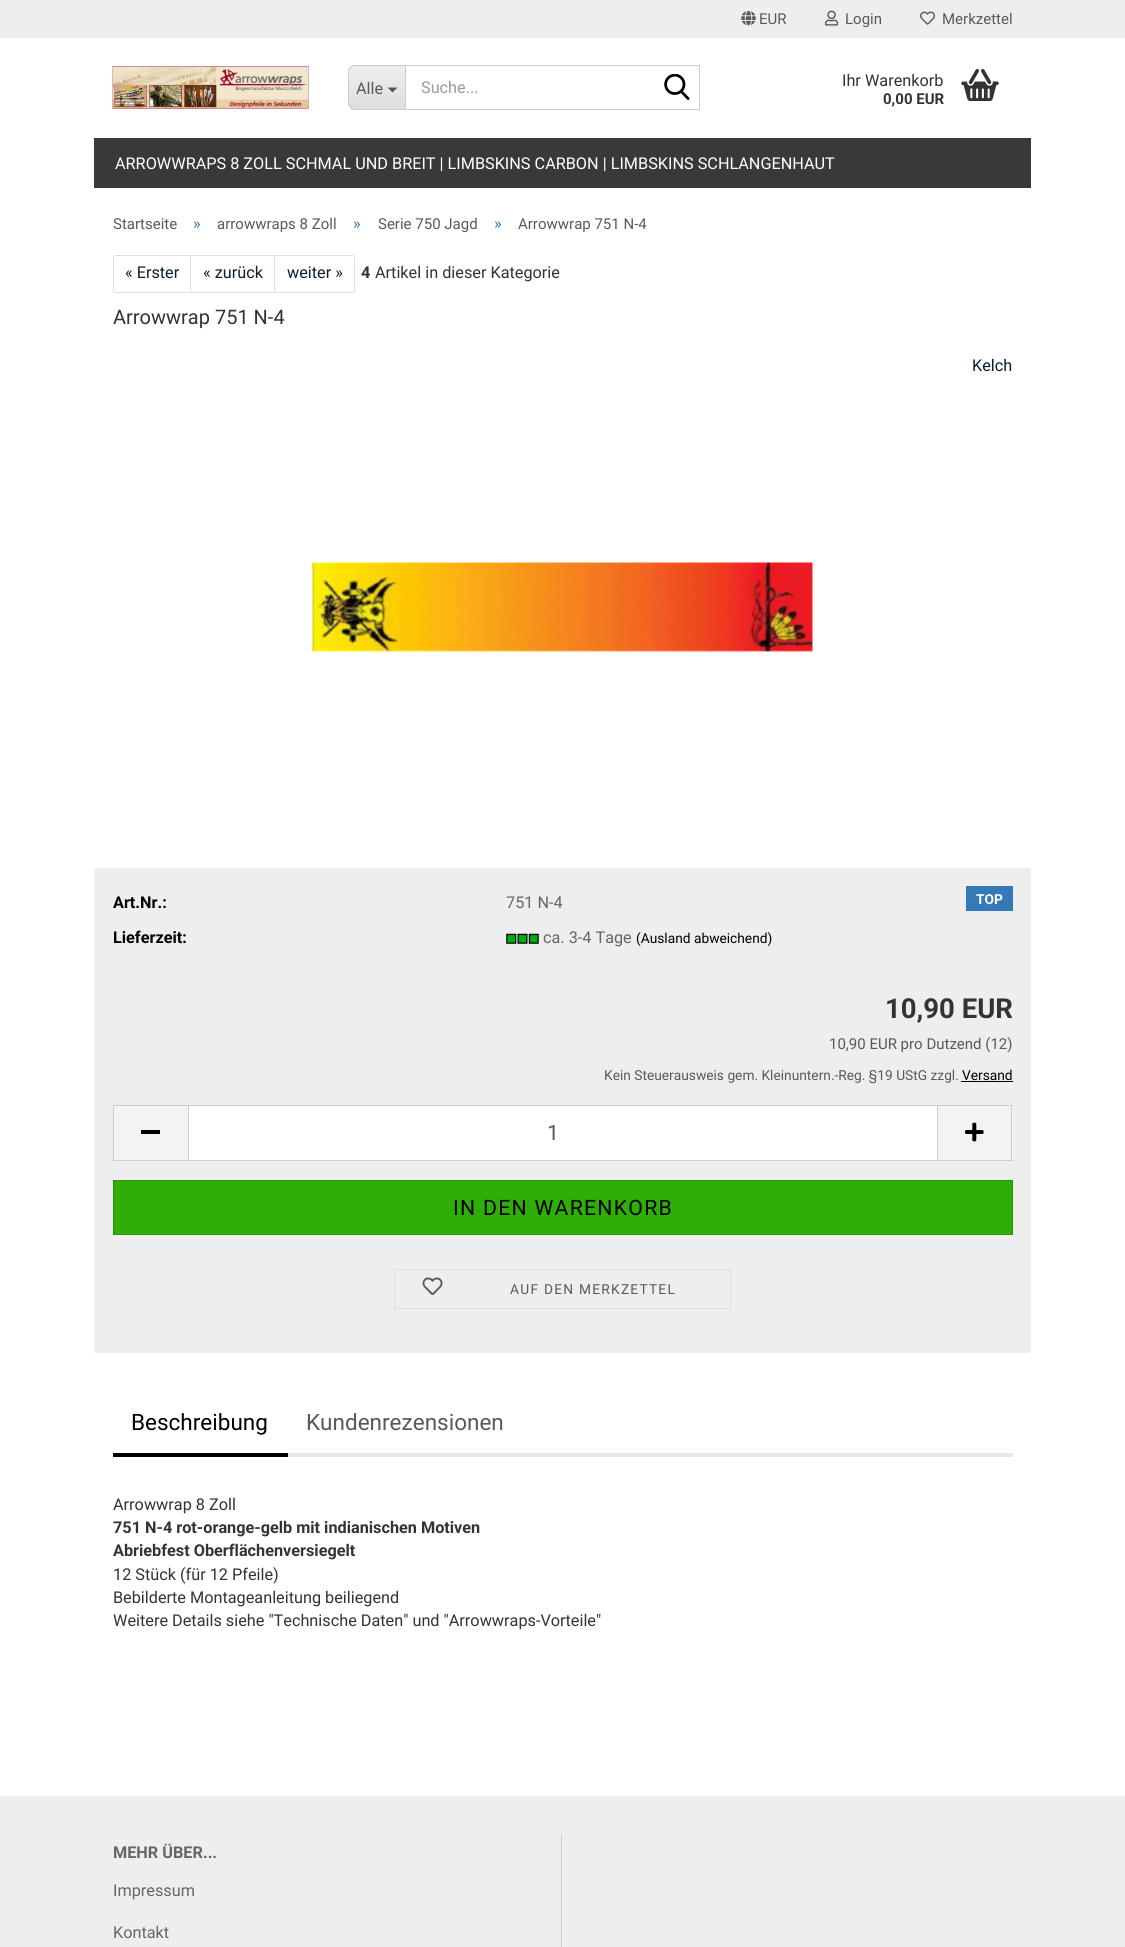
#include <cairo/cairo.h>
#include <math.h>
#include <stddef.h>


static void draw_spaced(cairo_t *cr, double x, double y, const char *s, double letter, double word) {
  cairo_move_to(cr, x, y);
  while (*s) {
    char ch[5] = {0};
    int n = 0;
    do ch[n++] = *s++; while ((*s & 0xC0) == 0x80);
    cairo_show_text(cr, ch);
    cairo_rel_move_to(cr, letter + word * (*ch == ' '), 0);
  }
}

static void rounded_rect(cairo_t *cr, double x, double y, double w, double h, double r) {
  cairo_new_sub_path(cr);
  cairo_arc(cr, x + w - r, y + h - r, r, 0, M_PI / 2);
  cairo_arc(cr, x + r, y + h - r, r, M_PI / 2, M_PI);
  cairo_arc(cr, x + r, y + r, r, M_PI, 1.5 * M_PI);
  cairo_arc(cr, x + w - r, y + r, r, 1.5 * M_PI, 2 * M_PI);
  cairo_close_path(cr);
}

static void draw_image(cairo_t *cr, const char *path, double x, double y, double w, double h) {
  cairo_surface_t *image = cairo_image_surface_create_from_png(path);
  cairo_save(cr);
  cairo_set_source_surface(cr, image, x, y);
  cairo_rectangle(cr, x, y, w, h);
  cairo_fill(cr);
  cairo_restore(cr);
  cairo_surface_destroy(image);
}

static void draw(cairo_t *cr) {
  cairo_pattern_t *gradient;
  cairo_set_source_rgb(cr, 1, 1, 1);
  cairo_paint(cr);
  cairo_set_source_rgb(cr, 238 / 255.0, 238 / 255.0, 238 / 255.0);
  cairo_rectangle(cr, 0, 0, 1125, 38);
  cairo_fill(cr);
  draw_image(cr, "images/1.png", 741, 10, 15, 16);
  draw_image(cr, "images/2.png", 825, 10, 14, 16);
  draw_image(cr, "images/3.png", 920, 11, 15, 14);
  draw_image(cr, "images/4.png", 112, 66, 197, 43);
  cairo_save(cr);
  cairo_new_path(cr);
  cairo_move_to(cr, 356, 65);
  cairo_line_to(cr, 405, 65);
  cairo_line_to(cr, 405, 110);
  cairo_line_to(cr, 356, 110);
  cairo_curve_to(cr, 351.5, 110, 348, 106.5, 348, 102);
  cairo_line_to(cr, 348, 73);
  cairo_curve_to(cr, 348, 68.5, 351.5, 65, 356, 65);
  cairo_close_path(cr);
  cairo_clip(cr);
  gradient = cairo_pattern_create_linear(377, 66, 377, 109);
  cairo_pattern_add_color_stop_rgba(gradient, 0, 238 / 255.0, 238 / 255.0, 238 / 255.0, 1);
  cairo_pattern_add_color_stop_rgba(gradient, 1, 222 / 255.0, 222 / 255.0, 222 / 255.0, 1);
  cairo_set_source(cr, gradient);
  cairo_pattern_destroy(gradient);
  cairo_rectangle(cr, 348, 66, 57, 43);
  cairo_fill(cr);
  cairo_restore(cr);
  cairo_set_source_rgb(cr, 204 / 255.0, 204 / 255.0, 204 / 255.0);
  cairo_set_fill_rule(cr, CAIRO_FILL_RULE_EVEN_ODD);
  cairo_new_path(cr);
  cairo_move_to(cr, 355, 65);
  cairo_line_to(cr, 405, 65);
  cairo_line_to(cr, 405, 110);
  cairo_line_to(cr, 355, 110);
  cairo_curve_to(cr, 351, 110, 348, 107, 348, 102);
  cairo_line_to(cr, 348, 72);
  cairo_curve_to(cr, 348, 68, 351, 65, 355, 65);
  cairo_close_path(cr);
  cairo_move_to(cr, 355, 66);
  cairo_line_to(cr, 405, 66);
  cairo_line_to(cr, 405, 109);
  cairo_line_to(cr, 355, 109);
  cairo_curve_to(cr, 352, 109, 349, 106, 349, 102);
  cairo_line_to(cr, 349, 72);
  cairo_curve_to(cr, 349, 69, 352, 66, 355, 66);
  cairo_close_path(cr);
  cairo_fill(cr);
  cairo_set_source_rgb(cr, 85 / 255.0, 85 / 255.0, 85 / 255.0);
  cairo_set_fill_rule(cr, CAIRO_FILL_RULE_WINDING);
  cairo_new_path(cr);
  cairo_move_to(cr, 387.5, 87.5);
  cairo_line_to(cr, 397.5, 87.5);
  cairo_line_to(cr, 392.5, 92.5);
  cairo_close_path(cr);
  cairo_fill(cr);
  cairo_rectangle(cr, 405.5, 65.5, 294, 44);
  cairo_set_source_rgb(cr, 204 / 255.0, 204 / 255.0, 204 / 255.0);
  cairo_set_line_width(cr, 1);
  cairo_stroke(cr);
  draw_image(cr, "images/5.png", 664, 74, 26, 26);
  draw_image(cr, "images/6.png", 961, 68, 38, 33);
  cairo_set_source_rgb(cr, 57 / 255.0, 57 / 255.0, 57 / 255.0);
  cairo_rectangle(cr, 94, 138, 937, 50);
  cairo_fill(cr);
  cairo_new_path(cr);
  cairo_move_to(cr, 115.5, 255.5);
  cairo_line_to(cr, 190.5, 255.5);
  cairo_line_to(cr, 190.5, 292.5);
  cairo_line_to(cr, 115.5, 292.5);
  cairo_curve_to(cr, 114.5, 292.5, 113.5, 291.5, 113.5, 290.5);
  cairo_line_to(cr, 113.5, 257.5);
  cairo_curve_to(cr, 113.5, 256.5, 114.5, 255.5, 115.5, 255.5);
  cairo_close_path(cr);
  cairo_set_source_rgb(cr, 221 / 255.0, 221 / 255.0, 221 / 255.0);
  cairo_stroke(cr);
  cairo_rectangle(cr, 190.5, 255.5, 84, 37);
  cairo_stroke(cr);
  cairo_set_source_rgb(cr, 1, 1, 1);
  cairo_new_path(cr);
  cairo_move_to(cr, 274.5, 255.5);
  cairo_line_to(cr, 352.5, 255.5);
  cairo_curve_to(cr, 353.5, 255.5, 354.5, 256.5, 354.5, 257.5);
  cairo_line_to(cr, 354.5, 290.5);
  cairo_curve_to(cr, 354.5, 291.5, 353.5, 292.5, 352.5, 292.5);
  cairo_line_to(cr, 274.5, 292.5);
  cairo_close_path(cr);
  cairo_fill_preserve(cr);
  cairo_set_source_rgb(cr, 221 / 255.0, 221 / 255.0, 221 / 255.0);
  cairo_stroke(cr);
  draw_image(cr, "images/7.png", 312, 562, 501, 90);
  cairo_set_source_rgb(cr, 238 / 255.0, 238 / 255.0, 238 / 255.0);
  rounded_rect(cr, 94, 868, 937, 485, 2.5);
  cairo_fill(cr);
  cairo_set_source_rgb(cr, 51 / 255.0, 122 / 255.0, 183 / 255.0);
  cairo_rectangle(cr, 966, 886, 47, 25);
  cairo_fill(cr);
  draw_image(cr, "images/8.png", 506, 933, 33, 11);
  cairo_set_source_rgb(cr, 0, 0, 0);
  cairo_rectangle(cr, 961, 1081, 52, 1);
  cairo_fill(cr);
  cairo_set_source_rgb(cr, 243 / 255.0, 243 / 255.0, 243 / 255.0);
  cairo_rectangle(cr, 114, 1106, 74, 54);
  cairo_fill(cr);
  cairo_set_source_rgb(cr, 204 / 255.0, 204 / 255.0, 204 / 255.0);
  cairo_rectangle(cr, 113, 1105, 75, 1);
  cairo_fill(cr);
  cairo_rectangle(cr, 113, 1160, 75, 1);
  cairo_fill(cr);
  cairo_rectangle(cr, 113, 1105, 1, 56);
  cairo_fill(cr);
  cairo_set_source_rgb(cr, 0, 0, 0);
  cairo_rectangle(cr, 141, 1130, 19, 4);
  cairo_fill(cr);
  cairo_set_source_rgb(cr, 1, 1, 1);
  cairo_rectangle(cr, 188.5, 1105.5, 749, 55);
  cairo_fill_preserve(cr);
  cairo_set_source_rgb(cr, 204 / 255.0, 204 / 255.0, 204 / 255.0);
  cairo_stroke(cr);
  cairo_set_source_rgb(cr, 243 / 255.0, 243 / 255.0, 243 / 255.0);
  cairo_rectangle(cr, 938, 1106, 75, 54);
  cairo_fill(cr);
  cairo_set_source_rgb(cr, 204 / 255.0, 204 / 255.0, 204 / 255.0);
  cairo_rectangle(cr, 938, 1105, 75, 1);
  cairo_fill(cr);
  cairo_rectangle(cr, 1011, 1105, 1, 56);
  cairo_fill(cr);
  cairo_rectangle(cr, 938, 1160, 75, 1);
  cairo_fill(cr);
  draw_image(cr, "images/9.png", 965, 1122, 19, 20);
  cairo_set_source_rgb(cr, 46 / 255.0, 174 / 255.0, 6 / 255.0);
  cairo_rectangle(cr, 113.5, 1180.5, 899, 54);
  cairo_fill_preserve(cr);
  cairo_set_source_rgb(cr, 39 / 255.0, 149 / 255.0, 5 / 255.0);
  cairo_stroke(cr);
  cairo_rectangle(cr, 394.5, 1269.5, 336, 39);
  cairo_set_source_rgb(cr, 221 / 255.0, 221 / 255.0, 221 / 255.0);
  cairo_stroke(cr);
  draw_image(cr, "images/10.png", 422, 1277, 21, 18);
  cairo_set_source_rgb(cr, 231 / 255.0, 231 / 255.0, 231 / 255.0);
  cairo_rectangle(cr, 288, 1453, 725, 4);
  cairo_fill(cr);
  cairo_set_source_rgb(cr, 0, 0, 0);
  cairo_rectangle(cr, 113, 1453, 175, 4);
  cairo_fill(cr);
  cairo_set_source_rgb(cr, 238 / 255.0, 238 / 255.0, 238 / 255.0);
  cairo_rectangle(cr, 0, 1796, 1125, 151);
  cairo_fill(cr);
  cairo_set_source_rgb(cr, 204 / 255.0, 204 / 255.0, 204 / 255.0);
  cairo_rectangle(cr, 561, 1834, 1, 113);
  cairo_fill(cr);
  cairo_select_font_face(cr, "Roboto", CAIRO_FONT_SLANT_NORMAL, CAIRO_FONT_WEIGHT_NORMAL);
  cairo_set_font_size(cr, 15);
  cairo_set_source_rgb(cr, 89 / 255.0, 89 / 255.0, 89 / 255.0);
  cairo_move_to(cr, 759, 24);
  cairo_show_text(cr, "EUR");
  cairo_move_to(cr, 845, 24);
  cairo_show_text(cr, "Login");
  cairo_move_to(cr, 942, 24);
  cairo_show_text(cr, "Merkzettel");
  cairo_set_font_size(cr, 16.25);
  cairo_move_to(cr, 356, 94);
  cairo_show_text(cr, "Alle");
  cairo_set_source_rgb(cr, 153 / 255.0, 153 / 255.0, 153 / 255.0);
  cairo_move_to(cr, 421, 93);
  cairo_show_text(cr, "Suche...");
  cairo_set_source_rgb(cr, 51 / 255.0, 51 / 255.0, 51 / 255.0);
  cairo_move_to(cr, 842, 86);
  cairo_show_text(cr, "Ihr Warenkorb");
  cairo_select_font_face(cr, "Roboto", CAIRO_FONT_SLANT_NORMAL, CAIRO_FONT_WEIGHT_BOLD);
  cairo_set_font_size(cr, 15);
  cairo_move_to(cr, 883, 104);
  cairo_show_text(cr, "0,00 EUR");
  cairo_select_font_face(cr, "Roboto", CAIRO_FONT_SLANT_NORMAL, CAIRO_FONT_WEIGHT_NORMAL);
  cairo_set_font_size(cr, 16.25);
  cairo_set_source_rgb(cr, 1, 1, 1);
  cairo_move_to(cr, 115, 169);
  cairo_show_text(cr, "ARROWWRAPS 8 ZOLL SCHMAL UND BREIT | LIMBSKINS CARBON | LIMBSKINS SCHLANGENHAUT");
  cairo_set_font_size(cr, 15);
  cairo_set_source_rgb(cr, 89 / 255.0, 89 / 255.0, 89 / 255.0);
  cairo_move_to(cr, 113, 229);
  cairo_show_text(cr, "Startseite");
  cairo_set_font_size(cr, 16.25);
  cairo_set_source_rgb(cr, 51 / 255.0, 122 / 255.0, 183 / 255.0);
  cairo_move_to(cr, 193, 229);
  cairo_show_text(cr, "»");
  cairo_set_font_size(cr, 15);
  cairo_set_source_rgb(cr, 89 / 255.0, 89 / 255.0, 89 / 255.0);
  cairo_move_to(cr, 217, 229);
  cairo_show_text(cr, "arrowwraps 8 Zoll");
  cairo_set_font_size(cr, 16.25);
  cairo_set_source_rgb(cr, 51 / 255.0, 122 / 255.0, 183 / 255.0);
  cairo_move_to(cr, 353, 229);
  cairo_show_text(cr, "»");
  cairo_set_font_size(cr, 15);
  cairo_set_source_rgb(cr, 89 / 255.0, 89 / 255.0, 89 / 255.0);
  cairo_move_to(cr, 378, 229);
  cairo_show_text(cr, "Serie 750 Jagd");
  cairo_set_font_size(cr, 16.25);
  cairo_set_source_rgb(cr, 51 / 255.0, 122 / 255.0, 183 / 255.0);
  cairo_move_to(cr, 494, 229);
  cairo_show_text(cr, "»");
  cairo_set_font_size(cr, 15);
  cairo_set_source_rgb(cr, 89 / 255.0, 89 / 255.0, 89 / 255.0);
  cairo_move_to(cr, 518, 229);
  cairo_show_text(cr, "Arrowwrap 751 N-4");
  cairo_set_font_size(cr, 16.25);
  cairo_set_source_rgb(cr, 12 / 255.0, 29 / 255.0, 43 / 255.0);
  cairo_move_to(cr, 125, 278);
  cairo_show_text(cr, "« Erster");
  cairo_move_to(cr, 203, 278);
  cairo_show_text(cr, "« zurück");
  cairo_move_to(cr, 287, 278);
  cairo_show_text(cr, "weiter »");
  cairo_select_font_face(cr, "Roboto", CAIRO_FONT_SLANT_NORMAL, CAIRO_FONT_WEIGHT_BOLD);
  cairo_set_source_rgb(cr, 51 / 255.0, 51 / 255.0, 51 / 255.0);
  cairo_move_to(cr, 361, 278);
  cairo_show_text(cr, "4");
  cairo_select_font_face(cr, "Roboto", CAIRO_FONT_SLANT_NORMAL, CAIRO_FONT_WEIGHT_NORMAL);
  cairo_move_to(cr, 375, 278);
  cairo_show_text(cr, "Artikel in dieser Kategorie");
  cairo_set_font_size(cr, 20);
  cairo_move_to(cr, 113, 324);
  cairo_show_text(cr, "Arrowwrap 751 N-4");
  cairo_set_font_size(cr, 16.25);
  cairo_set_source_rgb(cr, 12 / 255.0, 29 / 255.0, 43 / 255.0);
  cairo_move_to(cr, 972, 371);
  cairo_show_text(cr, "Kelch");
  cairo_select_font_face(cr, "Roboto", CAIRO_FONT_SLANT_NORMAL, CAIRO_FONT_WEIGHT_BOLD);
  cairo_set_font_size(cr, 13.75);
  cairo_set_source_rgb(cr, 1, 1, 1);
  cairo_move_to(cr, 976, 904);
  cairo_show_text(cr, "TOP");
  cairo_set_font_size(cr, 16.25);
  cairo_set_source_rgb(cr, 0, 0, 0);
  cairo_move_to(cr, 113, 908);
  cairo_show_text(cr, "Art.Nr.:");
  cairo_select_font_face(cr, "Roboto", CAIRO_FONT_SLANT_NORMAL, CAIRO_FONT_WEIGHT_NORMAL);
  cairo_set_source_rgb(cr, 102 / 255.0, 102 / 255.0, 102 / 255.0);
  cairo_move_to(cr, 506, 908);
  cairo_show_text(cr, "751 N-4");
  cairo_select_font_face(cr, "Roboto", CAIRO_FONT_SLANT_NORMAL, CAIRO_FONT_WEIGHT_BOLD);
  cairo_set_source_rgb(cr, 0, 0, 0);
  cairo_move_to(cr, 113, 943);
  cairo_show_text(cr, "Lieferzeit:");
  cairo_select_font_face(cr, "Roboto", CAIRO_FONT_SLANT_NORMAL, CAIRO_FONT_WEIGHT_NORMAL);
  cairo_set_source_rgb(cr, 102 / 255.0, 102 / 255.0, 102 / 255.0);
  cairo_move_to(cr, 543, 943);
  cairo_show_text(cr, "ca. 3-4 Tage");
  cairo_set_font_size(cr, 13.75);
  cairo_set_source_rgb(cr, 0, 0, 0);
  cairo_move_to(cr, 636, 943);
  cairo_show_text(cr, "(Ausland abweichend)");
  cairo_select_font_face(cr, "Roboto", CAIRO_FONT_SLANT_NORMAL, CAIRO_FONT_WEIGHT_BOLD);
  cairo_set_font_size(cr, 27.5);
  cairo_set_source_rgb(cr, 51 / 255.0, 51 / 255.0, 51 / 255.0);
  cairo_move_to(cr, 885, 1018);
  cairo_show_text(cr, "10,90 EUR");
  cairo_select_font_face(cr, "Roboto", CAIRO_FONT_SLANT_NORMAL, CAIRO_FONT_WEIGHT_NORMAL);
  cairo_set_font_size(cr, 15);
  cairo_set_source_rgb(cr, 89 / 255.0, 89 / 255.0, 89 / 255.0);
  cairo_move_to(cr, 829, 1049);
  cairo_show_text(cr, "10,90 EUR pro Dutzend (12)");
  cairo_set_font_size(cr, 13.75);
  cairo_move_to(cr, 604, 1080);
  cairo_show_text(cr, "Kein Steuerausweis gem. Kleinuntern.-Reg. §19 UStG zzgl.");
  cairo_set_source_rgb(cr, 0, 0, 0);
  cairo_move_to(cr, 962, 1080);
  cairo_show_text(cr, "Versand");
  cairo_set_font_size(cr, 21.25);
  cairo_set_source_rgb(cr, 89 / 255.0, 89 / 255.0, 89 / 255.0);
  cairo_move_to(cr, 547, 1140);
  cairo_show_text(cr, "1");
  cairo_set_source_rgb(cr, 0, 0, 0);
  draw_spaced(cr, 453, 1215, "IN DEN WARENKORB", 1.25, 0);
  cairo_set_font_size(cr, 13.75);
  cairo_set_source_rgb(cr, 89 / 255.0, 89 / 255.0, 89 / 255.0);
  draw_spaced(cr, 510, 1294, "AUF DEN MERKZETTEL", 1.25, 0);
  cairo_set_font_size(cr, 22.5);
  cairo_set_source_rgb(cr, 0, 0, 0);
  cairo_move_to(cr, 131, 1430);
  cairo_show_text(cr, "Beschreibung");
  cairo_set_source_rgb(cr, 89 / 255.0, 89 / 255.0, 89 / 255.0);
  cairo_move_to(cr, 306, 1430);
  cairo_show_text(cr, "Kundenrezensionen");
  cairo_set_font_size(cr, 16.25);
  cairo_set_source_rgb(cr, 51 / 255.0, 51 / 255.0, 51 / 255.0);
  cairo_move_to(cr, 113, 1510);
  cairo_show_text(cr, "Arrowwrap 8 Zoll");
  cairo_select_font_face(cr, "Roboto", CAIRO_FONT_SLANT_NORMAL, CAIRO_FONT_WEIGHT_BOLD);
  cairo_move_to(cr, 113, 1533);
  cairo_show_text(cr, "751 N-4 rot-orange-gelb mit indianischen Motiven");
  cairo_move_to(cr, 113, 1556);
  cairo_show_text(cr, "Abriebfest Oberflächenversiegelt");
  cairo_select_font_face(cr, "Roboto", CAIRO_FONT_SLANT_NORMAL, CAIRO_FONT_WEIGHT_NORMAL);
  cairo_move_to(cr, 113, 1580);
  cairo_show_text(cr, "12 Stück (für 12 Pfeile)");
  cairo_move_to(cr, 113, 1603);
  cairo_show_text(cr, "Bebilderte Montageanleitung beiliegend");
  cairo_move_to(cr, 113, 1626);
  cairo_show_text(cr, "Weitere Details siehe \"Technische Daten\" und \"Arrowwraps-Vorteile\"");
  cairo_select_font_face(cr, "Roboto", CAIRO_FONT_SLANT_NORMAL, CAIRO_FONT_WEIGHT_BOLD);
  cairo_set_source_rgb(cr, 102 / 255.0, 102 / 255.0, 102 / 255.0);
  cairo_move_to(cr, 113, 1858);
  cairo_show_text(cr, "MEHR ÜBER...");
  cairo_select_font_face(cr, "Roboto", CAIRO_FONT_SLANT_NORMAL, CAIRO_FONT_WEIGHT_NORMAL);
  cairo_move_to(cr, 113, 1896);
  cairo_show_text(cr, "Impressum");
  cairo_move_to(cr, 113, 1938);
  cairo_show_text(cr, "Kontakt");
}

int main(void) {
  cairo_surface_t *surface = cairo_image_surface_create(CAIRO_FORMAT_RGB24, 1125, 1947);
  cairo_t *cr = cairo_create(surface);
  cairo_font_options_t *options = cairo_font_options_create();
  cairo_font_options_set_hint_metrics(options, CAIRO_HINT_METRICS_OFF);
  cairo_font_options_set_hint_style(options, CAIRO_HINT_STYLE_NONE);
  cairo_set_font_options(cr, options);
  cairo_set_miter_limit(cr, 4);
  draw(cr);
  cairo_surface_write_to_png(surface, "out.png");
  cairo_font_options_destroy(options);
  cairo_destroy(cr);
  cairo_surface_destroy(surface);
  return 0;
}
